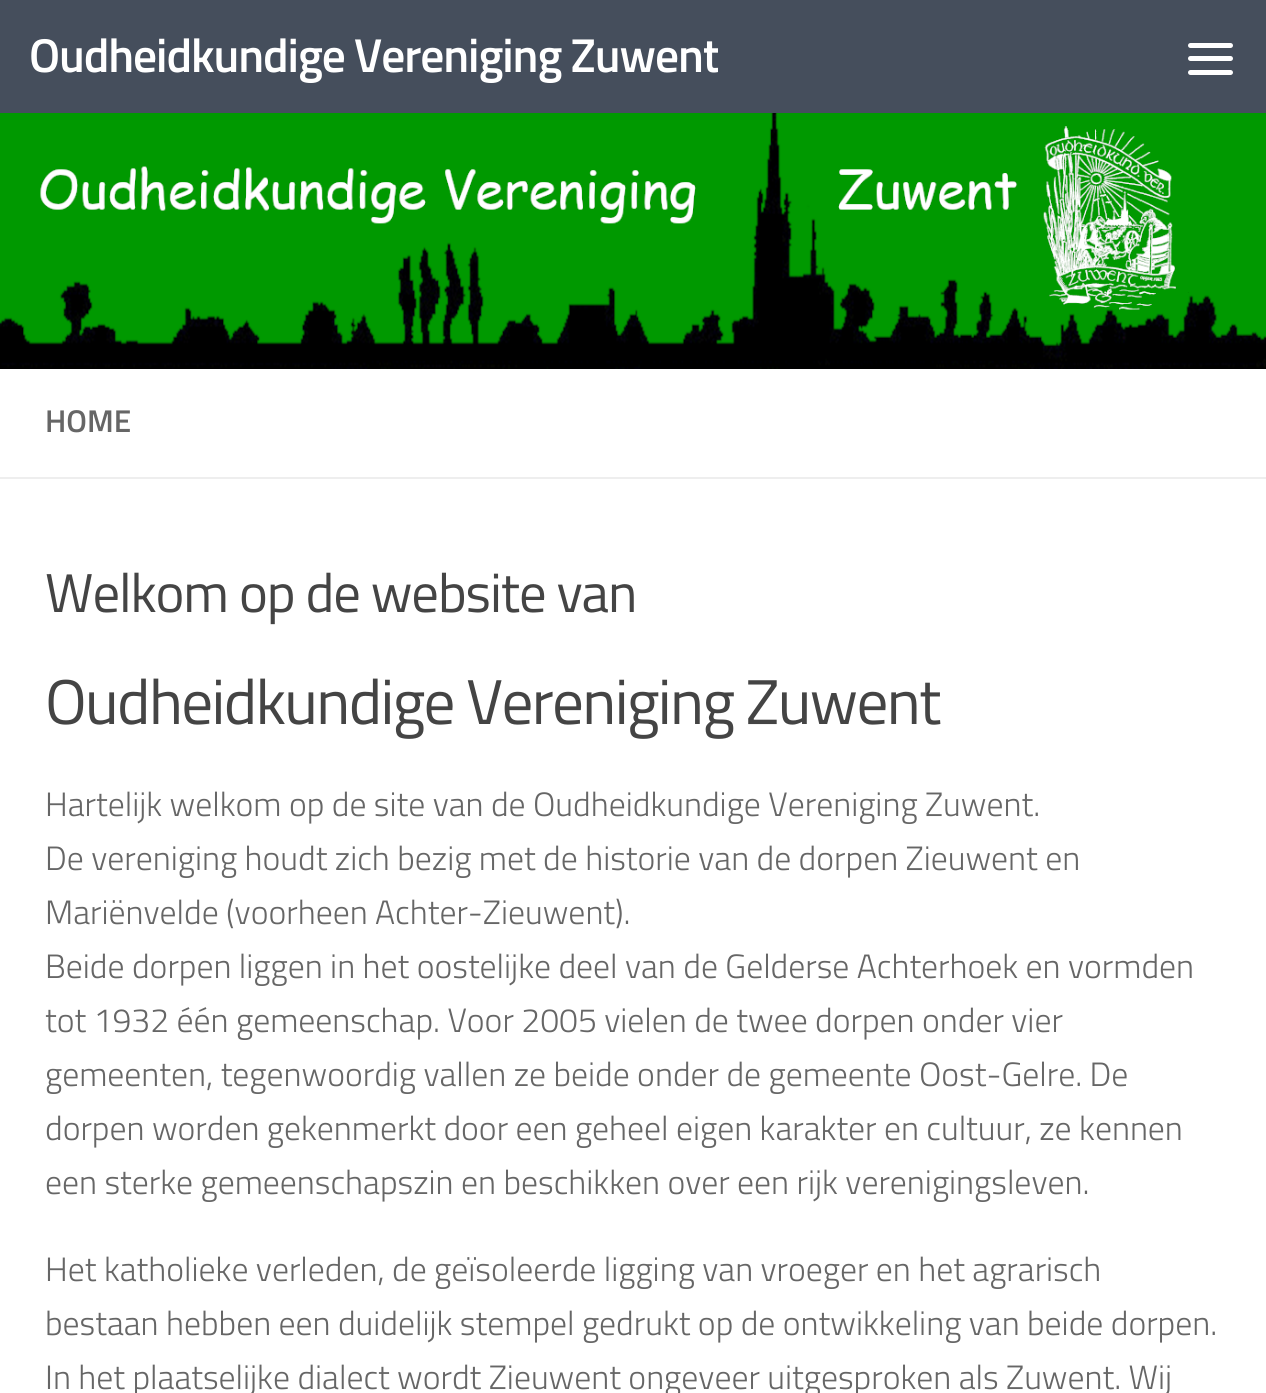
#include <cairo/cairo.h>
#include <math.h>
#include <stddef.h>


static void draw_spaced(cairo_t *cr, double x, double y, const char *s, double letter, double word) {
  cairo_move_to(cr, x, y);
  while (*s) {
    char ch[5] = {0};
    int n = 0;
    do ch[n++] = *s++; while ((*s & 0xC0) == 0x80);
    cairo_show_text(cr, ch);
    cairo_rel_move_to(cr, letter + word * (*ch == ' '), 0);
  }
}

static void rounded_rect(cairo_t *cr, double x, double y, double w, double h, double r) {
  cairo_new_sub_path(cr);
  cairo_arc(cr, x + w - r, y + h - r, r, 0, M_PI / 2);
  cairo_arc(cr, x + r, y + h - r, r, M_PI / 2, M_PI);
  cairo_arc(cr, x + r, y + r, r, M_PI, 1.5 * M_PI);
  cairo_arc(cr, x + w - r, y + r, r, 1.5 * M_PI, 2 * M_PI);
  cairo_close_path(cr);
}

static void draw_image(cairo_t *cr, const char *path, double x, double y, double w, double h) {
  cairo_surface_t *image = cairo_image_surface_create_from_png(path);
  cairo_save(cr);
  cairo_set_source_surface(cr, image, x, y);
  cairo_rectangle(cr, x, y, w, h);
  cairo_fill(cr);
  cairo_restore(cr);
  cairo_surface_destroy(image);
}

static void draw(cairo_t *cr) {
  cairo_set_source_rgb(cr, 1, 1, 1);
  cairo_paint(cr);
  cairo_set_source_rgb(cr, 69 / 255.0, 78 / 255.0, 92 / 255.0);
  cairo_rectangle(cr, 0, 0, 1266, 113);
  cairo_fill(cr);
  cairo_set_source_rgb(cr, 1, 1, 1);
  rounded_rect(cr, 1188, 43, 45, 5, 2.5);
  cairo_fill(cr);
  rounded_rect(cr, 1188, 56, 45, 5, 2.5);
  cairo_fill(cr);
  rounded_rect(cr, 1188, 70, 45, 5, 2.5);
  cairo_fill(cr);
  draw_image(cr, "images/1.png", 0, 113, 1266, 256);
  cairo_set_source_rgb(cr, 238 / 255.0, 238 / 255.0, 238 / 255.0);
  cairo_rectangle(cr, 0, 477, 1266, 2);
  cairo_fill(cr);
  cairo_save(cr);
  cairo_rectangle(cr, 29, 0, 689, 113);
  cairo_clip(cr);
  cairo_select_font_face(cr, "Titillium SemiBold", CAIRO_FONT_SLANT_NORMAL, CAIRO_FONT_WEIGHT_NORMAL);
  cairo_set_font_size(cr, 47.5);
  cairo_set_source_rgb(cr, 1, 1, 1);
  draw_spaced(cr, 29, 72, "Oudheidkundige Vereniging Zuwent", -1.1, 0);
  cairo_restore(cr);
  cairo_select_font_face(cr, "Titillium SemiBold", CAIRO_FONT_SLANT_NORMAL, CAIRO_FONT_WEIGHT_NORMAL);
  cairo_set_font_size(cr, 31.5);
  cairo_set_source_rgb(cr, 102 / 255.0, 102 / 255.0, 102 / 255.0);
  cairo_move_to(cr, 45, 432);
  cairo_show_text(cr, "HOME");
  cairo_select_font_face(cr, "Titillium", CAIRO_FONT_SLANT_NORMAL, CAIRO_FONT_WEIGHT_NORMAL);
  cairo_set_font_size(cr, 54.75);
  cairo_set_source_rgb(cr, 68 / 255.0, 68 / 255.0, 68 / 255.0);
  draw_spaced(cr, 45, 612, "Welkom op de website van", -1.1, 0);
  cairo_set_font_size(cr, 63.25);
  draw_spaced(cr, 45, 724, "Oudheidkundige Vereniging Zuwent", -1.6, 0);
  cairo_select_font_face(cr, "Titillium Light", CAIRO_FONT_SLANT_NORMAL, CAIRO_FONT_WEIGHT_NORMAL);
  cairo_set_font_size(cr, 33.75);
  cairo_set_source_rgb(cr, 102 / 255.0, 102 / 255.0, 102 / 255.0);
  cairo_move_to(cr, 45, 816);
  cairo_show_text(cr, "Hartelijk welkom op de site van de Oudheidkundige Vereniging Zuwent.");
  cairo_move_to(cr, 45, 870);
  cairo_show_text(cr, "De vereniging houdt zich bezig met de historie van de dorpen Zieuwent en");
  cairo_move_to(cr, 45, 924);
  cairo_show_text(cr, "Mariënvelde (voorheen Achter-Zieuwent).");
  cairo_move_to(cr, 45, 978);
  cairo_show_text(cr, "Beide dorpen liggen in het oostelijke deel van de Gelderse Achterhoek en vormden");
  cairo_move_to(cr, 45, 1032);
  cairo_show_text(cr, "tot 1932 één gemeenschap. Voor 2005 vielen de twee dorpen onder vier");
  cairo_move_to(cr, 45, 1086);
  cairo_show_text(cr, "gemeenten, tegenwoordig vallen ze beide onder de gemeente Oost-Gelre. De");
  cairo_move_to(cr, 45, 1140);
  cairo_show_text(cr, "dorpen worden gekenmerkt door een geheel eigen karakter en cultuur, ze kennen");
  cairo_move_to(cr, 45, 1194);
  cairo_show_text(cr, "een sterke gemeenschapszin en beschikken over een rijk verenigingsleven.");
  cairo_move_to(cr, 45, 1281);
  cairo_show_text(cr, "Het katholieke verleden, de geïsoleerde ligging van vroeger en het agrarisch");
  cairo_move_to(cr, 45, 1335);
  cairo_show_text(cr, "bestaan hebben een duidelijk stempel gedrukt op de ontwikkeling van beide dorpen.");
  cairo_move_to(cr, 45, 1389);
  cairo_show_text(cr, "In het plaatselijke dialect wordt Zieuwent ongeveer uitgesproken als Zuwent. Wij");
}

int main(void) {
  cairo_surface_t *surface = cairo_image_surface_create(CAIRO_FORMAT_RGB24, 1266, 1393);
  cairo_t *cr = cairo_create(surface);
  cairo_font_options_t *options = cairo_font_options_create();
  cairo_font_options_set_hint_metrics(options, CAIRO_HINT_METRICS_OFF);
  cairo_font_options_set_hint_style(options, CAIRO_HINT_STYLE_NONE);
  cairo_set_font_options(cr, options);
  cairo_set_miter_limit(cr, 4);
  draw(cr);
  cairo_surface_write_to_png(surface, "out.png");
  cairo_font_options_destroy(options);
  cairo_destroy(cr);
  cairo_surface_destroy(surface);
  return 0;
}
